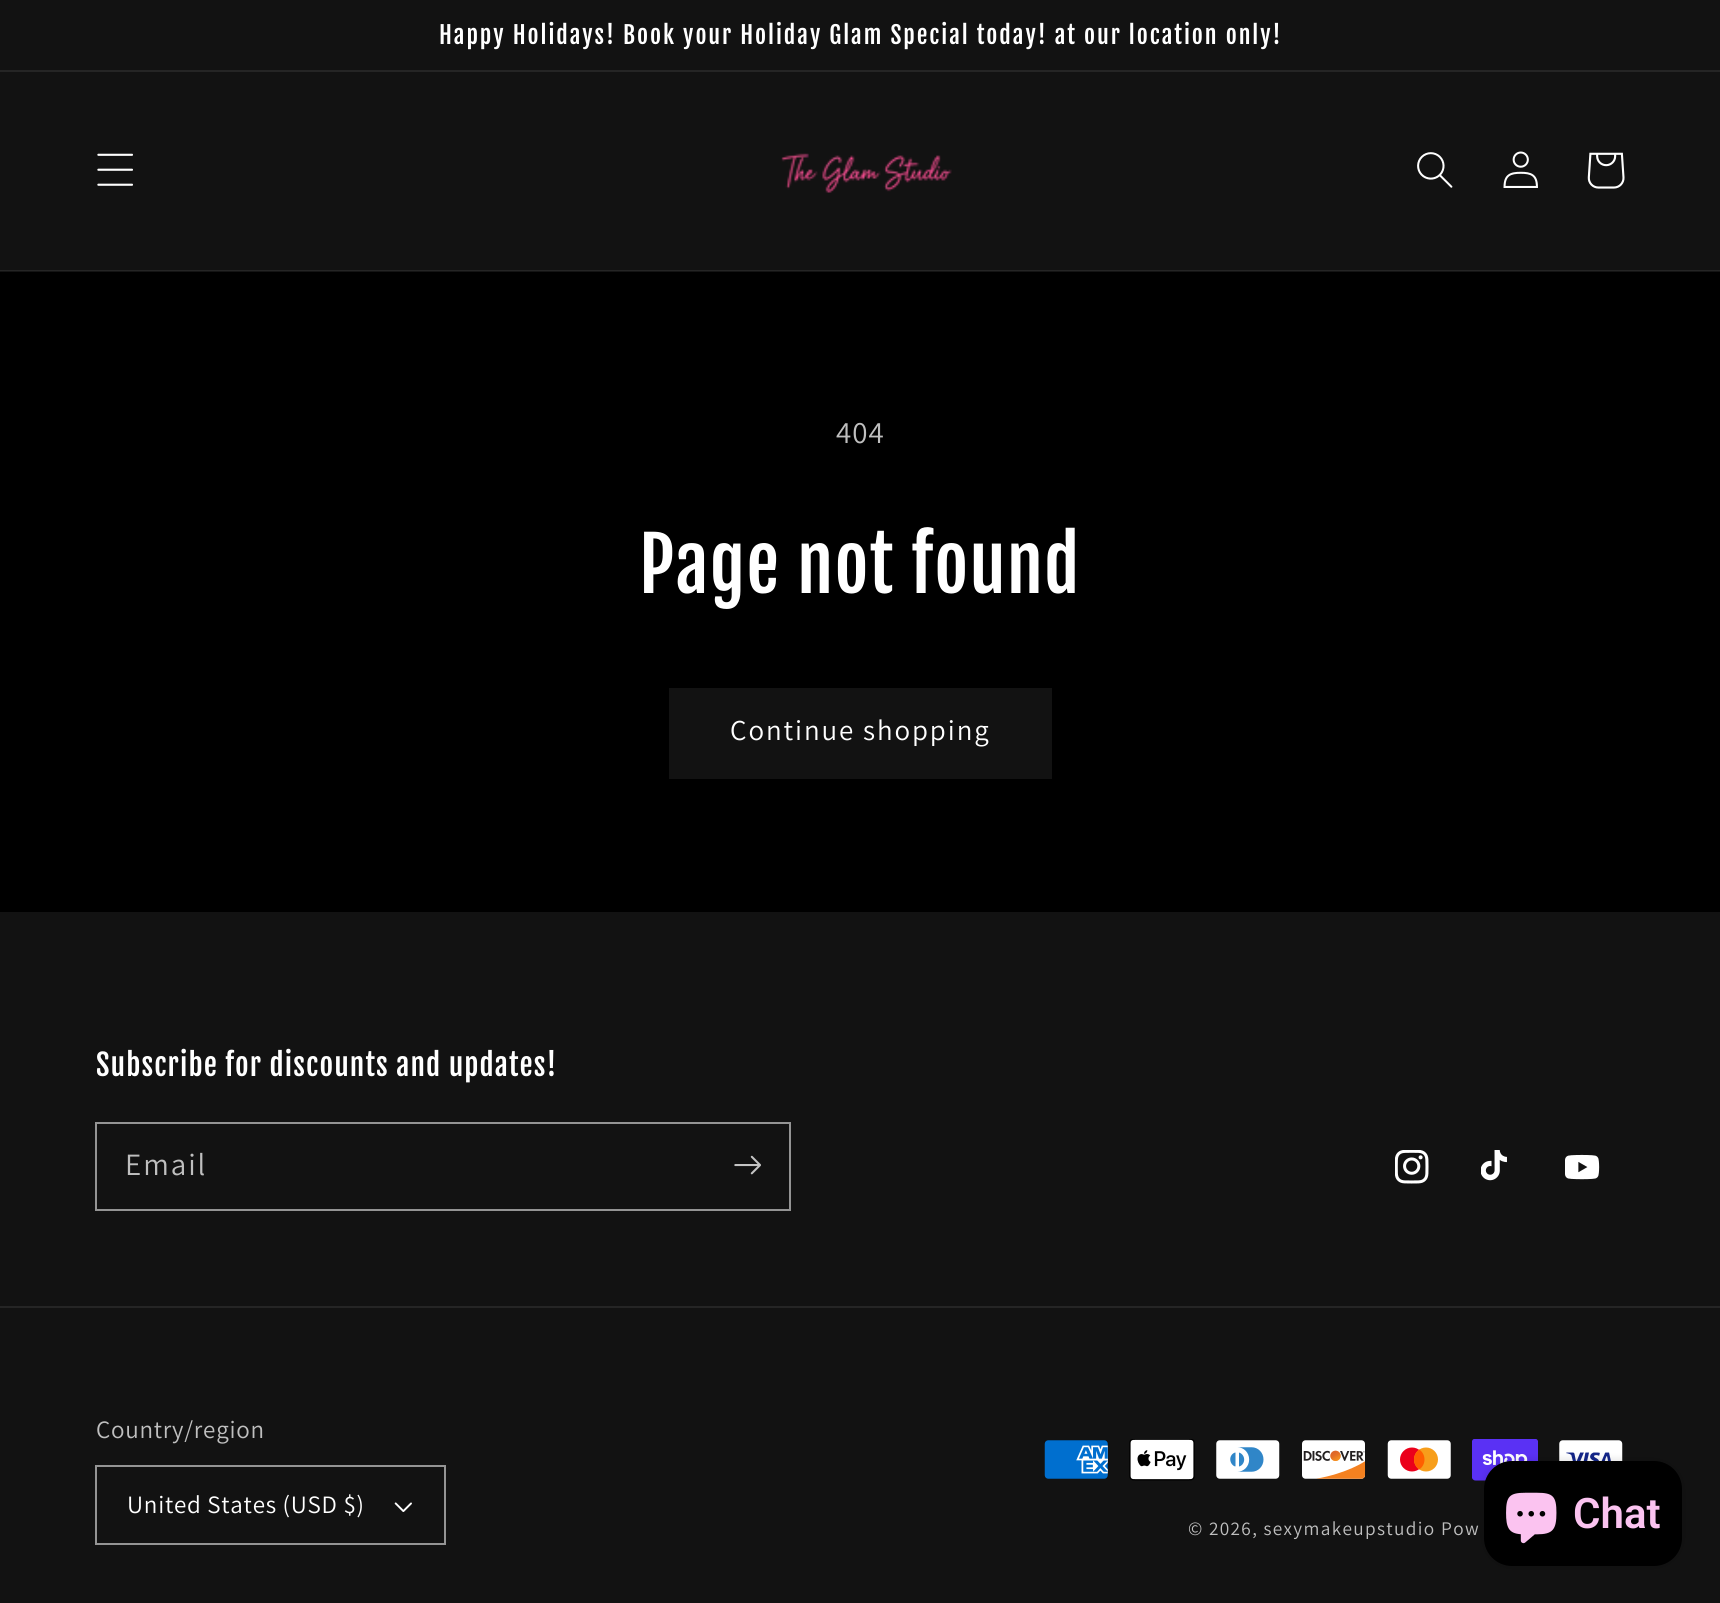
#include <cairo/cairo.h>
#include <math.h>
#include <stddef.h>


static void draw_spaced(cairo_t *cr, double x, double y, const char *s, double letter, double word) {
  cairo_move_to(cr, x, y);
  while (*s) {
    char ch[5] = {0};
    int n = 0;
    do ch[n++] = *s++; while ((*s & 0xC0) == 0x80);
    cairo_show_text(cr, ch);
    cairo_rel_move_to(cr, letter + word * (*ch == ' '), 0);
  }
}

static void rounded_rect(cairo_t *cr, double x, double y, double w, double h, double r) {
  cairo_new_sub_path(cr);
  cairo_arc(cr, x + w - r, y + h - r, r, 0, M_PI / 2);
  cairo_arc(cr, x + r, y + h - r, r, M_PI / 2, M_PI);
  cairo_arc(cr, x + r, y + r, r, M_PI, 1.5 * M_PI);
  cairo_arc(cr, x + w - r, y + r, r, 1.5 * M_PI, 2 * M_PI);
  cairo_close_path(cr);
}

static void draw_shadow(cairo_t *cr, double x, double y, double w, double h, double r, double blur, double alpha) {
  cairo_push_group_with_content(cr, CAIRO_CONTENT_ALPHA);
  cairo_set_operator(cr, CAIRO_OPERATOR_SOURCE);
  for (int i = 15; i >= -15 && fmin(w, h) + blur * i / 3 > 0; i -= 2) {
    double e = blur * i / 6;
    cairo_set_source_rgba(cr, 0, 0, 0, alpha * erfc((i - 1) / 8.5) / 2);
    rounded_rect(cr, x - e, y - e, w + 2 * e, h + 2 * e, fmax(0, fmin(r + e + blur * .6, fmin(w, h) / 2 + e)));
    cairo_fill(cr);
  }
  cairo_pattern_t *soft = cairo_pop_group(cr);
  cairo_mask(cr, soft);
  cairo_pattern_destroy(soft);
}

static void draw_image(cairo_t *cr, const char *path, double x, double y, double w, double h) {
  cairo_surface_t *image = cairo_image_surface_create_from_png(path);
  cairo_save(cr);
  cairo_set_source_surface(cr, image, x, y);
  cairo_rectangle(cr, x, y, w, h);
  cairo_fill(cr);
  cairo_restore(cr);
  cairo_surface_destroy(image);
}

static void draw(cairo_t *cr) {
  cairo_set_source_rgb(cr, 0, 0, 0);
  cairo_paint(cr);
  cairo_set_source_rgb(cr, 20 / 255.0, 20 / 255.0, 20 / 255.0);
  cairo_rectangle(cr, 0, 271, 1720, 1);
  cairo_fill(cr);
  cairo_set_source_rgb(cr, 18 / 255.0, 18 / 255.0, 18 / 255.0);
  cairo_rectangle(cr, 0, 0, 1720, 70);
  cairo_fill(cr);
  cairo_set_source_rgb(cr, 37 / 255.0, 37 / 255.0, 37 / 255.0);
  cairo_rectangle(cr, 0, 70, 1720, 2);
  cairo_fill(cr);
  cairo_set_source_rgb(cr, 18 / 255.0, 18 / 255.0, 18 / 255.0);
  cairo_rectangle(cr, 0, 72, 1720, 198);
  cairo_fill(cr);
  cairo_set_source_rgb(cr, 37 / 255.0, 37 / 255.0, 37 / 255.0);
  cairo_rectangle(cr, 0, 270, 1720, 1);
  cairo_fill(cr);
  draw_image(cr, "images/1.png", 97, 153, 36, 33);
  draw_image(cr, "images/2.png", 781, 153, 171, 40);
  draw_image(cr, "images/3.png", 1417, 152, 36, 36);
  draw_image(cr, "images/4.png", 1503, 151, 35, 37);
  draw_image(cr, "images/5.png", 1587, 152, 38, 37);
  cairo_rectangle(cr, 670, 689, 381, 89);
  cairo_set_source_rgb(cr, 18 / 255.0, 18 / 255.0, 18 / 255.0);
  cairo_stroke(cr);
  cairo_rectangle(cr, 671, 690, 379, 87);
  cairo_fill(cr);
  cairo_rectangle(cr, 0, 912, 1720, 691);
  cairo_fill(cr);
  cairo_rectangle(cr, 96, 1123, 694, 87);
  cairo_set_source_rgb(cr, 148 / 255.0, 148 / 255.0, 148 / 255.0);
  cairo_stroke(cr);
  draw_image(cr, "images/6.png", 734, 1155, 27, 20);
  draw_image(cr, "images/7.png", 1395, 1150, 34, 34);
  draw_image(cr, "images/8.png", 1481, 1150, 26, 31);
  draw_image(cr, "images/9.png", 1565, 1154, 35, 26);
  cairo_set_source_rgb(cr, 37 / 255.0, 37 / 255.0, 37 / 255.0);
  cairo_rectangle(cr, 0, 1306, 1720, 2);
  cairo_fill(cr);
  cairo_rectangle(cr, 96, 1466, 349, 78);
  cairo_set_source_rgb(cr, 148 / 255.0, 148 / 255.0, 148 / 255.0);
  cairo_stroke(cr);
  draw_image(cr, "images/10.png", 394, 1502, 18, 10);
  draw_image(cr, "images/11.png", 1044, 1440, 64, 39);
  draw_image(cr, "images/12.png", 1129, 1439, 66, 42);
  draw_image(cr, "images/13.png", 1216, 1440, 64, 39);
  draw_image(cr, "images/14.png", 1302, 1440, 64, 39);
  draw_image(cr, "images/15.png", 1387, 1440, 64, 39);
  draw_image(cr, "images/16.png", 1472, 1439, 66, 42);
  draw_image(cr, "images/17.png", 1559, 1440, 64, 21);
  cairo_set_source_rgb(cr, 0, 0, 0);
  draw_shadow(cr, 1484, 1461, 198, 105, 28, 4.5, 0.15);
  cairo_set_source_rgb(cr, 0, 0, 0);
  rounded_rect(cr, 1484, 1461, 198, 105, 28);
  cairo_fill(cr);
  draw_image(cr, "images/18.png", 1506, 1492, 51, 52);
  cairo_select_font_face(cr, "Fjalla One", CAIRO_FONT_SLANT_NORMAL, CAIRO_FONT_WEIGHT_NORMAL);
  cairo_set_font_size(cr, 23.9);
  cairo_set_source_rgb(cr, 1, 1, 1);
  draw_spaced(cr, 439, 44, "Happy Holidays! Book your Holiday Glam Special today! at our location only!", 1.93, 0);
  cairo_select_font_face(cr, "Assistant", CAIRO_FONT_SLANT_NORMAL, CAIRO_FONT_WEIGHT_NORMAL);
  cairo_set_font_size(cr, 31);
  cairo_set_source_rgb(cr, 191 / 255.0, 191 / 255.0, 191 / 255.0);
  draw_spaced(cr, 836, 443, "404", 1, 0);
  cairo_select_font_face(cr, "Fjalla One", CAIRO_FONT_SLANT_NORMAL, CAIRO_FONT_WEIGHT_NORMAL);
  cairo_set_font_size(cr, 73.5);
  cairo_set_source_rgb(cr, 1, 1, 1);
  draw_spaced(cr, 639, 593, "Page not found", 1.1, 0);
  cairo_select_font_face(cr, "Assistant", CAIRO_FONT_SLANT_NORMAL, CAIRO_FONT_WEIGHT_NORMAL);
  cairo_set_font_size(cr, 28.9);
  draw_spaced(cr, 730, 740, "Continue shopping", 1.93, 0);
  cairo_select_font_face(cr, "Fjalla One", CAIRO_FONT_SLANT_NORMAL, CAIRO_FONT_WEIGHT_NORMAL);
  cairo_set_font_size(cr, 29.4);
  draw_spaced(cr, 96, 1076, "Subscribe for discounts and updates!", 1.1, 0);
  cairo_select_font_face(cr, "Assistant", CAIRO_FONT_SLANT_NORMAL, CAIRO_FONT_WEIGHT_NORMAL);
  cairo_set_font_size(cr, 31);
  cairo_set_source_rgb(cr, 191 / 255.0, 191 / 255.0, 191 / 255.0);
  draw_spaced(cr, 125, 1175, "Email", 1.93, 0);
  cairo_set_font_size(cr, 25);
  draw_spaced(cr, 96, 1438, "Country/region", 0.75, 0);
  cairo_set_source_rgb(cr, 1, 1, 1);
  draw_spaced(cr, 127, 1513, "United States (USD $)", 0.75, 0);
  cairo_set_font_size(cr, 19.25);
  cairo_set_source_rgb(cr, 191 / 255.0, 191 / 255.0, 191 / 255.0);
  draw_spaced(cr, 1188, 1535, "© 2026, sexymakeupstudio", 1.35, 0);
  draw_spaced(cr, 1441, 1535, "Pow", 1.35, 0);
  cairo_select_font_face(cr, "Roboto SemiBold", CAIRO_FONT_SLANT_NORMAL, CAIRO_FONT_WEIGHT_NORMAL);
  cairo_set_font_size(cr, 42);
  cairo_set_source_rgb(cr, 251 / 255.0, 195 / 255.0, 240 / 255.0);
  cairo_move_to(cr, 1573, 1528);
  cairo_show_text(cr, "Chat");
}

int main(void) {
  cairo_surface_t *surface = cairo_image_surface_create(CAIRO_FORMAT_RGB24, 1720, 1603);
  cairo_t *cr = cairo_create(surface);
  cairo_font_options_t *options = cairo_font_options_create();
  cairo_font_options_set_hint_metrics(options, CAIRO_HINT_METRICS_OFF);
  cairo_font_options_set_hint_style(options, CAIRO_HINT_STYLE_NONE);
  cairo_set_font_options(cr, options);
  cairo_set_miter_limit(cr, 4);
  draw(cr);
  cairo_surface_write_to_png(surface, "out.png");
  cairo_font_options_destroy(options);
  cairo_destroy(cr);
  cairo_surface_destroy(surface);
  return 0;
}
